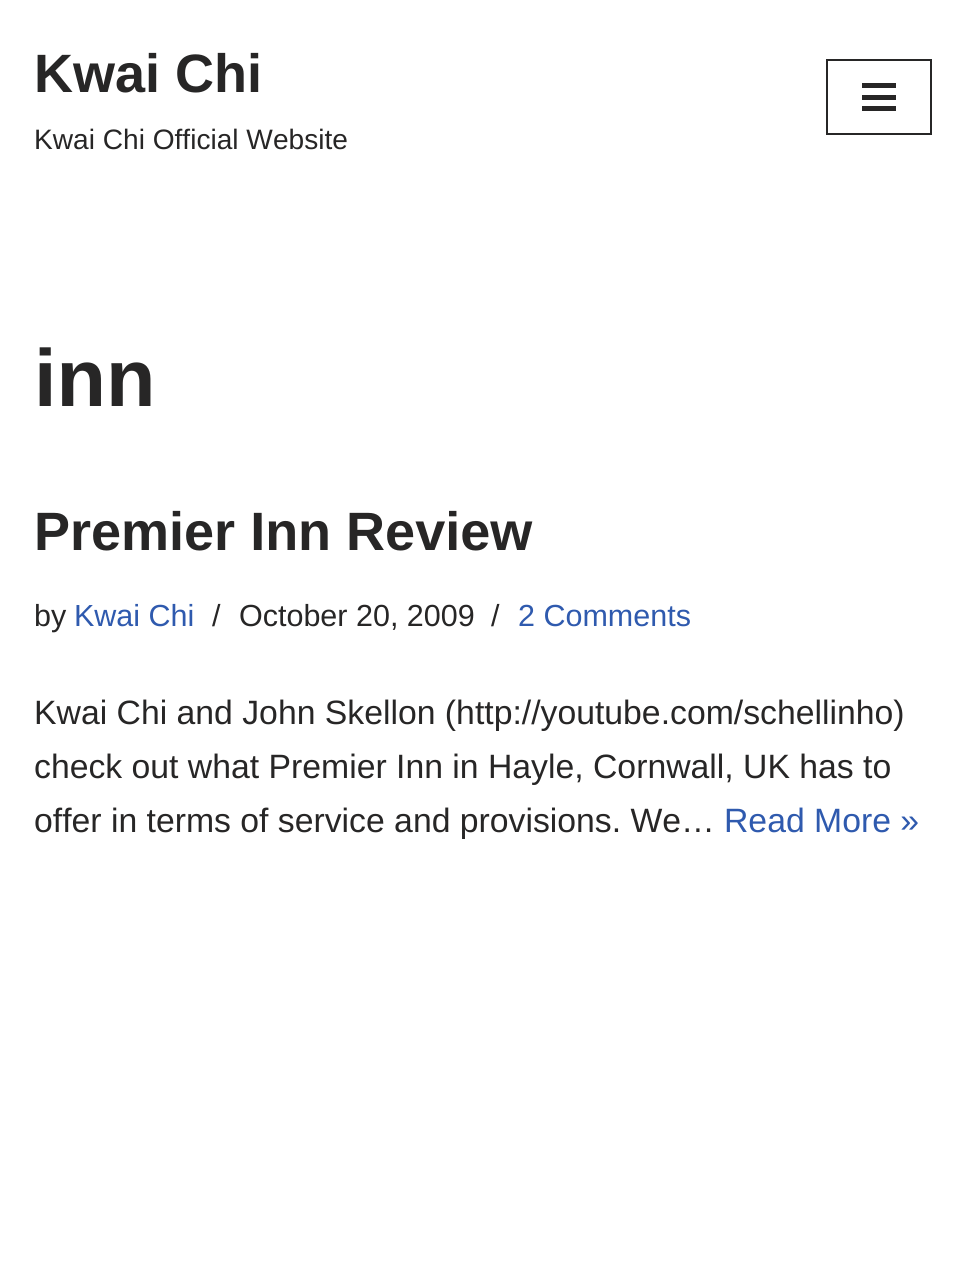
#include <cairo/cairo.h>
#include <math.h>
#include <stddef.h>


static void draw(cairo_t *cr) {
  cairo_set_source_rgb(cr, 1, 1, 1);
  cairo_paint(cr);
  cairo_rectangle(cr, 827, 60, 104, 74);
  cairo_set_source_rgb(cr, 39 / 255.0, 38 / 255.0, 38 / 255.0);
  cairo_stroke(cr);
  cairo_rectangle(cr, 862, 83, 34, 5);
  cairo_fill(cr);
  cairo_rectangle(cr, 862, 95, 34, 5);
  cairo_fill(cr);
  cairo_rectangle(cr, 862, 106, 34, 5);
  cairo_fill(cr);
  cairo_select_font_face(cr, "Liberation Sans", CAIRO_FONT_SLANT_NORMAL, CAIRO_FONT_WEIGHT_BOLD);
  cairo_set_font_size(cr, 54);
  cairo_move_to(cr, 34, 92);
  cairo_show_text(cr, "Kwai Chi");
  cairo_select_font_face(cr, "Liberation Sans", CAIRO_FONT_SLANT_NORMAL, CAIRO_FONT_WEIGHT_NORMAL);
  cairo_set_font_size(cr, 28.1);
  cairo_move_to(cr, 34, 149);
  cairo_show_text(cr, "Kwai Chi Official Website");
  cairo_select_font_face(cr, "Liberation Sans", CAIRO_FONT_SLANT_NORMAL, CAIRO_FONT_WEIGHT_BOLD);
  cairo_set_font_size(cr, 81);
  cairo_move_to(cr, 34, 406);
  cairo_show_text(cr, "inn");
  cairo_set_font_size(cr, 54);
  cairo_move_to(cr, 34, 550);
  cairo_show_text(cr, "Premier Inn Review");
  cairo_select_font_face(cr, "Liberation Sans", CAIRO_FONT_SLANT_NORMAL, CAIRO_FONT_WEIGHT_NORMAL);
  cairo_set_font_size(cr, 30.5);
  cairo_move_to(cr, 34, 626);
  cairo_show_text(cr, "by");
  cairo_set_source_rgb(cr, 47 / 255.0, 90 / 255.0, 174 / 255.0);
  cairo_move_to(cr, 74, 626);
  cairo_show_text(cr, "Kwai Chi");
  cairo_set_source_rgb(cr, 39 / 255.0, 38 / 255.0, 38 / 255.0);
  cairo_move_to(cr, 212, 626);
  cairo_show_text(cr, "/");
  cairo_move_to(cr, 239, 626);
  cairo_show_text(cr, "October 20, 2009");
  cairo_move_to(cr, 491, 626);
  cairo_show_text(cr, "/");
  cairo_set_source_rgb(cr, 47 / 255.0, 90 / 255.0, 174 / 255.0);
  cairo_move_to(cr, 518, 626);
  cairo_show_text(cr, "2 Comments");
  cairo_set_font_size(cr, 33.75);
  cairo_set_source_rgb(cr, 39 / 255.0, 38 / 255.0, 38 / 255.0);
  cairo_move_to(cr, 34, 724);
  cairo_show_text(cr, "Kwai Chi and John Skellon (http://youtube.com/schellinho)");
  cairo_move_to(cr, 34, 778);
  cairo_show_text(cr, "check out what Premier Inn in Hayle, Cornwall, UK has to");
  cairo_move_to(cr, 34, 832);
  cairo_show_text(cr, "offer in terms of service and provisions. We…");
  cairo_set_source_rgb(cr, 47 / 255.0, 90 / 255.0, 174 / 255.0);
  cairo_move_to(cr, 724, 832);
  cairo_show_text(cr, "Read More »");
}

int main(void) {
  cairo_surface_t *surface = cairo_image_surface_create(CAIRO_FORMAT_RGB24, 965, 1270);
  cairo_t *cr = cairo_create(surface);
  cairo_font_options_t *options = cairo_font_options_create();
  cairo_font_options_set_hint_metrics(options, CAIRO_HINT_METRICS_OFF);
  cairo_font_options_set_hint_style(options, CAIRO_HINT_STYLE_NONE);
  cairo_set_font_options(cr, options);
  cairo_set_miter_limit(cr, 4);
  draw(cr);
  cairo_surface_write_to_png(surface, "out.png");
  cairo_font_options_destroy(options);
  cairo_destroy(cr);
  cairo_surface_destroy(surface);
  return 0;
}
